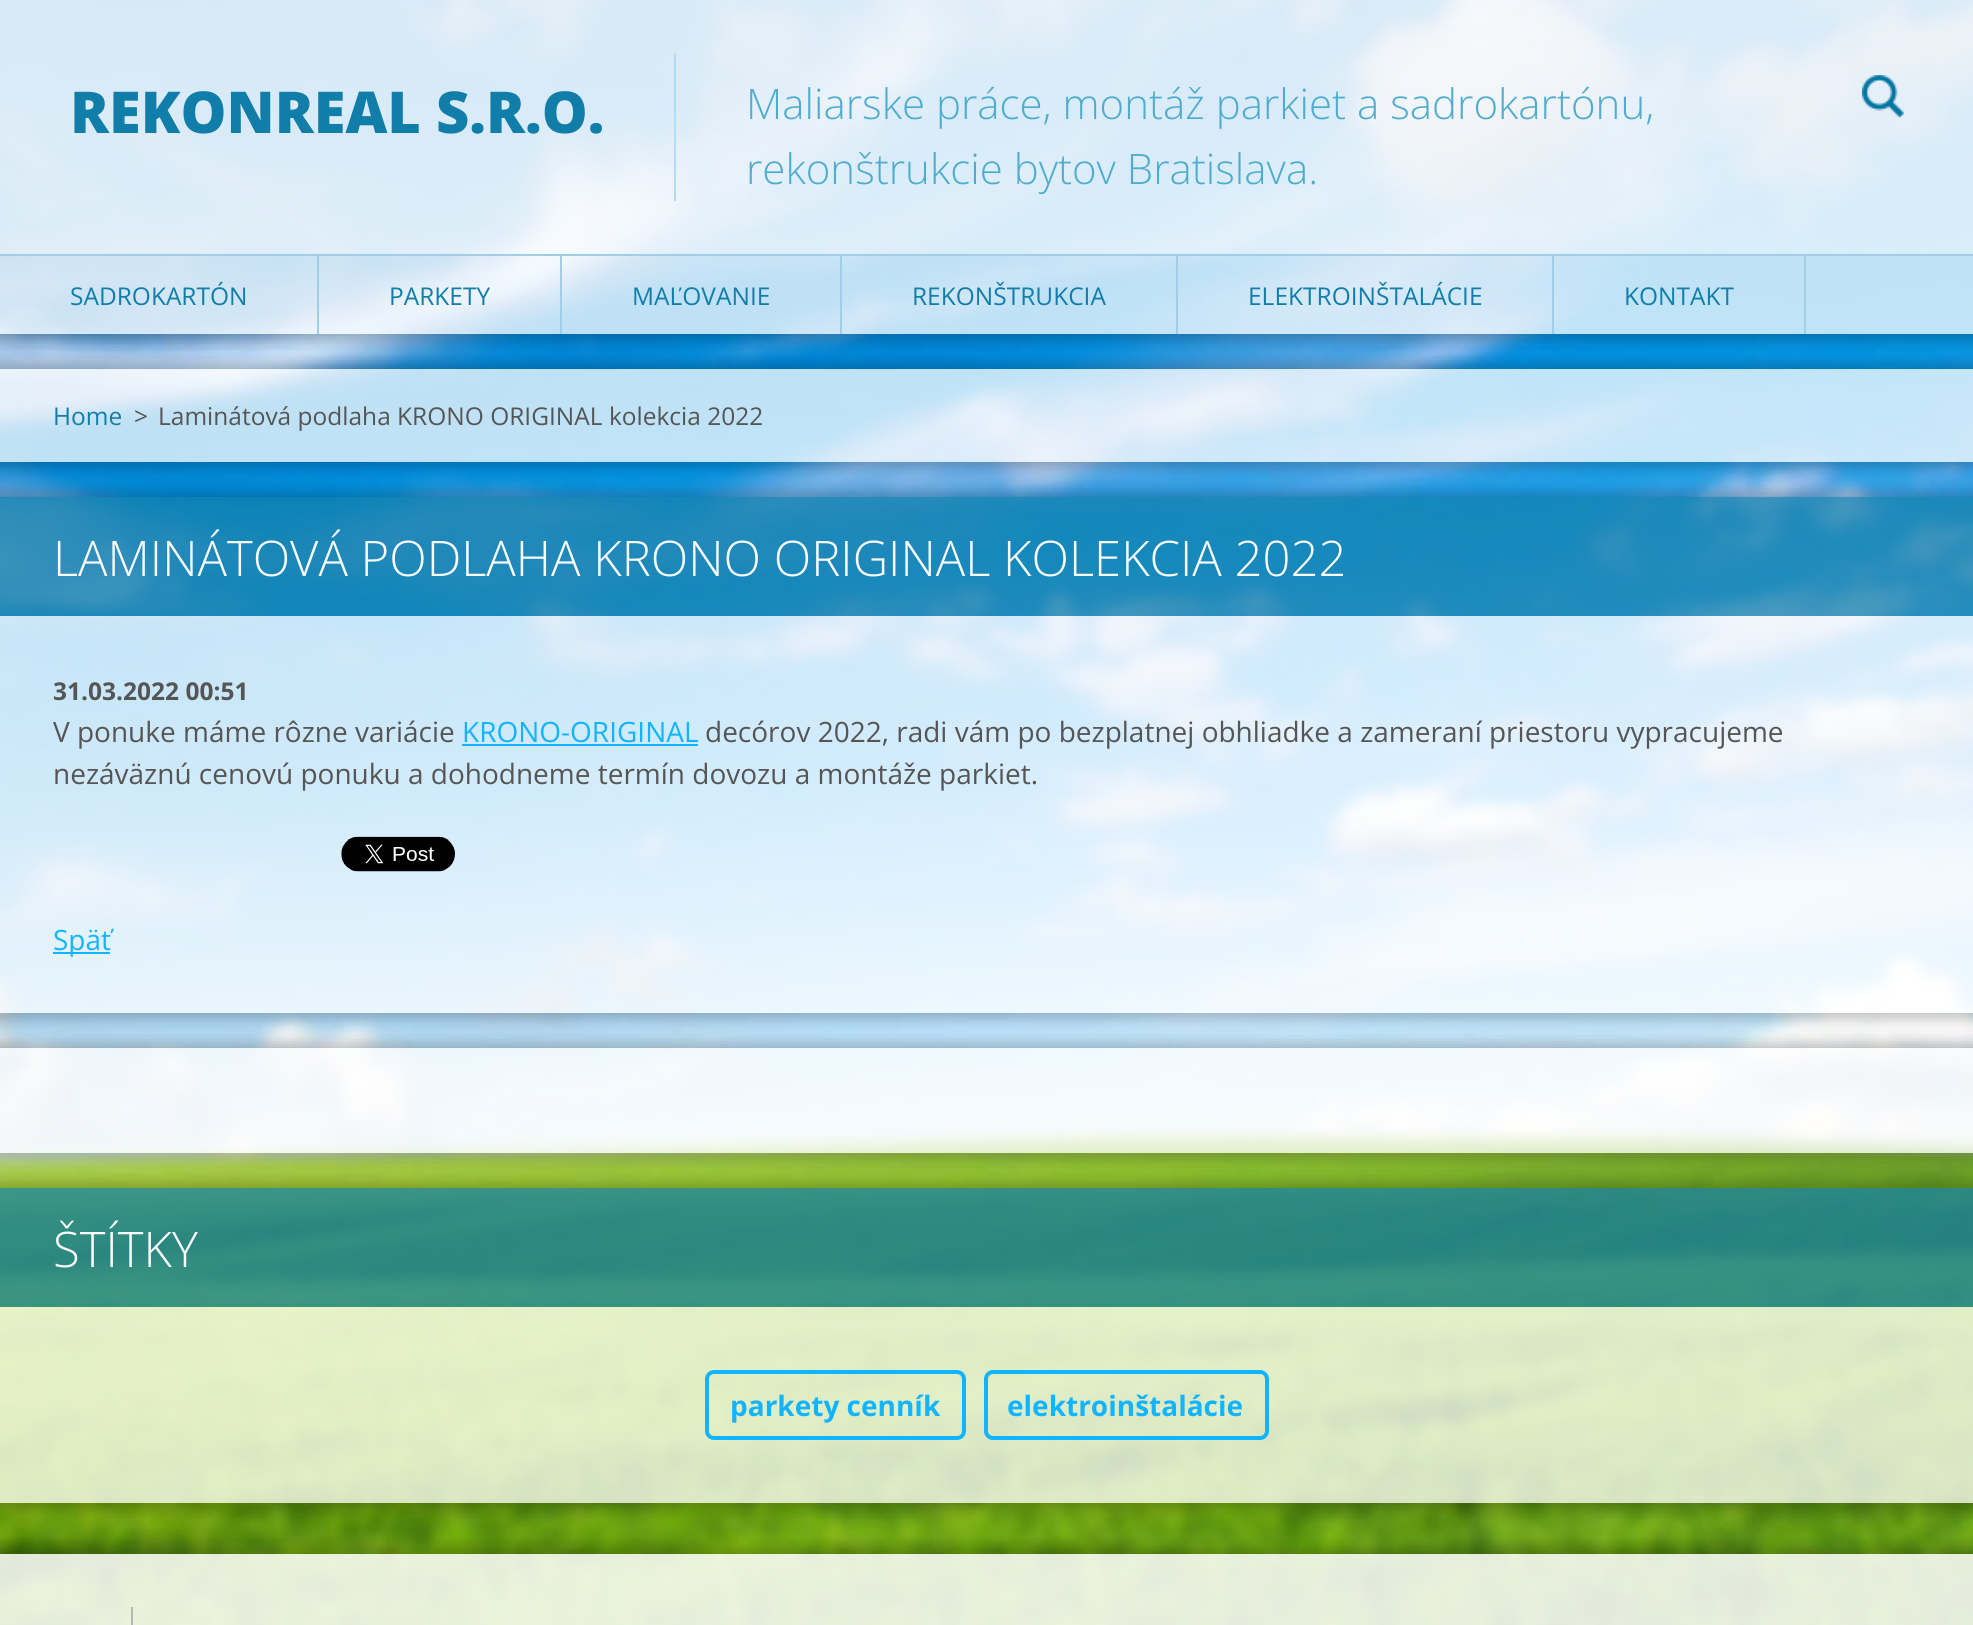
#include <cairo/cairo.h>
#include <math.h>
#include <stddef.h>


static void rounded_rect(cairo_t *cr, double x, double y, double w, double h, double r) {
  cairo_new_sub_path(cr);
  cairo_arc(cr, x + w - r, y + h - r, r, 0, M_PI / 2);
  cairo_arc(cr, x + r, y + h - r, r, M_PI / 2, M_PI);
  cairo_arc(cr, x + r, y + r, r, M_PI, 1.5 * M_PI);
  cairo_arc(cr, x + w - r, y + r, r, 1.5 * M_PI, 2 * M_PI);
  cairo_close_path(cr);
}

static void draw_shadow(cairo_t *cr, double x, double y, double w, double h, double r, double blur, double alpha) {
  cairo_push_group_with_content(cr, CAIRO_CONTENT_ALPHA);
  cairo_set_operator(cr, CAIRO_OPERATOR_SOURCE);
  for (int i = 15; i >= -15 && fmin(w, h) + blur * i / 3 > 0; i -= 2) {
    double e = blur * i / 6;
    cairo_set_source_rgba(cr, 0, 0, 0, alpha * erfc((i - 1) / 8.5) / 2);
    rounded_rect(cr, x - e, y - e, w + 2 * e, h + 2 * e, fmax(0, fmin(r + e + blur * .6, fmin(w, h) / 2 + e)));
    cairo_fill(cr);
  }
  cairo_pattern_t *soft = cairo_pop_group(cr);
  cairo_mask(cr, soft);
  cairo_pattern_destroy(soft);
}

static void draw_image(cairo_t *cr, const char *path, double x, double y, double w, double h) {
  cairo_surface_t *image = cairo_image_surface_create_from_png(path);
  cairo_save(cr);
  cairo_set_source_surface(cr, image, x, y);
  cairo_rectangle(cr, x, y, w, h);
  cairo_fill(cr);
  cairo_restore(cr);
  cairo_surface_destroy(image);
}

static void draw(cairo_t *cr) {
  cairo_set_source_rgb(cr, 1, 1, 1);
  cairo_paint(cr);
  draw_image(cr, "images/1.png", 0, 0, 1973, 1625);
  cairo_save(cr);
  cairo_rectangle(cr, 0, 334, 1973, 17);
  cairo_clip(cr);
  cairo_set_source_rgb(cr, 0, 0, 0);
  draw_shadow(cr, -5, -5, 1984, 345, 0, 8, 0.25);
  cairo_restore(cr);
  cairo_set_source_rgba(cr, 1, 1, 1, 0.85);
  cairo_rectangle(cr, 0, 0, 1973, 254);
  cairo_fill(cr);
  cairo_set_source_rgb(cr, 181 / 255.0, 220 / 255.0, 243 / 255.0);
  cairo_rectangle(cr, 674, 53, 2, 148);
  cairo_fill(cr);
  draw_image(cr, "images/2.png", 1862, 75, 42, 43);
  cairo_set_source_rgb(cr, 162 / 255.0, 205 / 255.0, 230 / 255.0);
  cairo_rectangle(cr, 0, 254, 1973, 2);
  cairo_fill(cr);
  cairo_set_source_rgba(cr, 1, 1, 1, 0.75);
  cairo_rectangle(cr, 0, 256, 1973, 78);
  cairo_fill(cr);
  cairo_set_source_rgb(cr, 162 / 255.0, 205 / 255.0, 230 / 255.0);
  cairo_rectangle(cr, 317, 256, 2, 78);
  cairo_fill(cr);
  cairo_rectangle(cr, 560, 256, 2, 78);
  cairo_fill(cr);
  cairo_rectangle(cr, 840, 256, 2, 78);
  cairo_fill(cr);
  cairo_rectangle(cr, 1176, 256, 2, 78);
  cairo_fill(cr);
  cairo_rectangle(cr, 1552, 256, 2, 78);
  cairo_fill(cr);
  cairo_rectangle(cr, 1804, 256, 2, 78);
  cairo_fill(cr);
  cairo_save(cr);
  cairo_set_fill_rule(cr, CAIRO_FILL_RULE_EVEN_ODD);
  cairo_new_path(cr);
  cairo_move_to(cr, 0, 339);
  cairo_line_to(cr, 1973, 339);
  cairo_line_to(cr, 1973, 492);
  cairo_line_to(cr, 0, 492);
  cairo_close_path(cr);
  cairo_move_to(cr, 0, 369);
  cairo_line_to(cr, 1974, 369);
  cairo_line_to(cr, 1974, 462);
  cairo_line_to(cr, 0, 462);
  cairo_close_path(cr);
  cairo_clip(cr);
  cairo_set_source_rgb(cr, 0, 0, 0);
  draw_shadow(cr, -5, 364, 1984, 103, 0, 8, 0.25);
  cairo_restore(cr);
  cairo_set_source_rgba(cr, 1, 1, 1, 0.75);
  cairo_rectangle(cr, 0, 369, 1973, 93);
  cairo_fill(cr);
  cairo_save(cr);
  cairo_set_fill_rule(cr, CAIRO_FILL_RULE_EVEN_ODD);
  cairo_new_path(cr);
  cairo_move_to(cr, 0, 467);
  cairo_line_to(cr, 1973, 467);
  cairo_line_to(cr, 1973, 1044);
  cairo_line_to(cr, 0, 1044);
  cairo_close_path(cr);
  cairo_move_to(cr, 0, 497);
  cairo_line_to(cr, 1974, 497);
  cairo_line_to(cr, 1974, 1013);
  cairo_line_to(cr, 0, 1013);
  cairo_close_path(cr);
  cairo_clip(cr);
  cairo_set_source_rgb(cr, 0, 0, 0);
  draw_shadow(cr, -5, 492, 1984, 527, 0, 8, 0.25);
  cairo_restore(cr);
  cairo_set_source_rgba(cr, 16 / 255.0, 126 / 255.0, 168 / 255.0, 0.71);
  cairo_rectangle(cr, 0, 497, 1973, 119);
  cairo_fill(cr);
  cairo_set_source_rgba(cr, 1, 1, 1, 0.75);
  cairo_rectangle(cr, 0, 616, 1973, 221);
  cairo_fill(cr);
  cairo_set_source_rgb(cr, 19 / 255.0, 180 / 255.0, 1);
  cairo_rectangle(cr, 462, 744, 236, 2);
  cairo_fill(cr);
  cairo_set_source_rgba(cr, 1, 1, 1, 0.75);
  cairo_rectangle(cr, 0, 837, 1973, 176);
  cairo_fill(cr);
  draw_image(cr, "images/3.png", 341, 836, 114, 36);
  cairo_set_source_rgb(cr, 19 / 255.0, 180 / 255.0, 1);
  cairo_rectangle(cr, 53, 952, 57, 2);
  cairo_fill(cr);
  cairo_save(cr);
  cairo_set_fill_rule(cr, CAIRO_FILL_RULE_EVEN_ODD);
  cairo_new_path(cr);
  cairo_move_to(cr, 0, 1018);
  cairo_line_to(cr, 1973, 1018);
  cairo_line_to(cr, 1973, 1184);
  cairo_line_to(cr, 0, 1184);
  cairo_close_path(cr);
  cairo_move_to(cr, 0, 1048);
  cairo_line_to(cr, 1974, 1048);
  cairo_line_to(cr, 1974, 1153);
  cairo_line_to(cr, 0, 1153);
  cairo_close_path(cr);
  cairo_clip(cr);
  cairo_set_source_rgb(cr, 0, 0, 0);
  draw_shadow(cr, -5, 1043, 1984, 116, 0, 8, 0.25);
  cairo_restore(cr);
  cairo_set_source_rgba(cr, 1, 1, 1, 0.75);
  cairo_rectangle(cr, 0, 1048, 1973, 53);
  cairo_fill(cr);
  cairo_rectangle(cr, 0, 1101, 1973, 52);
  cairo_fill(cr);
  cairo_save(cr);
  cairo_set_fill_rule(cr, CAIRO_FILL_RULE_EVEN_ODD);
  cairo_new_path(cr);
  cairo_move_to(cr, 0, 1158);
  cairo_line_to(cr, 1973, 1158);
  cairo_line_to(cr, 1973, 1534);
  cairo_line_to(cr, 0, 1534);
  cairo_close_path(cr);
  cairo_move_to(cr, 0, 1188);
  cairo_line_to(cr, 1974, 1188);
  cairo_line_to(cr, 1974, 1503);
  cairo_line_to(cr, 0, 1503);
  cairo_close_path(cr);
  cairo_clip(cr);
  cairo_set_source_rgb(cr, 0, 0, 0);
  draw_shadow(cr, -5, 1183, 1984, 326, 0, 8, 0.25);
  cairo_restore(cr);
  cairo_set_source_rgba(cr, 16 / 255.0, 126 / 255.0, 168 / 255.0, 0.71);
  cairo_rectangle(cr, 0, 1188, 1973, 119);
  cairo_fill(cr);
  cairo_set_source_rgba(cr, 1, 1, 1, 0.75);
  cairo_rectangle(cr, 0, 1307, 1973, 144);
  cairo_fill(cr);
  rounded_rect(cr, 707, 1372, 257, 66, 7);
  cairo_set_source_rgb(cr, 19 / 255.0, 180 / 255.0, 1);
  cairo_set_line_width(cr, 4);
  cairo_stroke(cr);
  rounded_rect(cr, 986, 1372, 281, 66, 7);
  cairo_stroke(cr);
  cairo_set_source_rgba(cr, 1, 1, 1, 0.75);
  cairo_rectangle(cr, 0, 1451, 1973, 52);
  cairo_fill(cr);
  cairo_save(cr);
  cairo_rectangle(cr, 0, 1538, 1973, 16);
  cairo_clip(cr);
  cairo_set_source_rgb(cr, 0, 0, 0);
  draw_shadow(cr, -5, 1549, 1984, 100, 0, 8, 0.25);
  cairo_restore(cr);
  cairo_set_source_rgba(cr, 1, 1, 1, 0.85);
  cairo_rectangle(cr, 0, 1554, 1973, 71);
  cairo_fill(cr);
  cairo_set_source_rgb(cr, 183 / 255.0, 183 / 255.0, 183 / 255.0);
  cairo_rectangle(cr, 131, 1607, 2, 18);
  cairo_fill(cr);
  cairo_select_font_face(cr, "Open Sans ExtraBold", CAIRO_FONT_SLANT_NORMAL, CAIRO_FONT_WEIGHT_NORMAL);
  cairo_set_font_size(cr, 57.75);
  cairo_set_source_rgb(cr, 16 / 255.0, 126 / 255.0, 168 / 255.0);
  cairo_move_to(cr, 70, 133);
  cairo_show_text(cr, "REKONREAL S.R.O.");
  cairo_select_font_face(cr, "Open Sans Light", CAIRO_FONT_SLANT_NORMAL, CAIRO_FONT_WEIGHT_NORMAL);
  cairo_set_font_size(cr, 42);
  cairo_set_source_rgb(cr, 80 / 255.0, 172 / 255.0, 207 / 255.0);
  cairo_move_to(cr, 746, 119);
  cairo_show_text(cr, "Maliarske práce, montáž parkiet a sadrokartónu,");
  cairo_move_to(cr, 746, 184);
  cairo_show_text(cr, "rekonštrukcie bytov Bratislava.");
  cairo_select_font_face(cr, "Open Sans", CAIRO_FONT_SLANT_NORMAL, CAIRO_FONT_WEIGHT_NORMAL);
  cairo_set_font_size(cr, 24.5);
  cairo_set_source_rgb(cr, 16 / 255.0, 126 / 255.0, 168 / 255.0);
  cairo_move_to(cr, 70, 305);
  cairo_show_text(cr, "SADROKARTÓN");
  cairo_move_to(cr, 389, 305);
  cairo_show_text(cr, "PARKETY");
  cairo_move_to(cr, 632, 305);
  cairo_show_text(cr, "MAĽOVANIE");
  cairo_move_to(cr, 912, 305);
  cairo_show_text(cr, "REKONŠTRUKCIA");
  cairo_move_to(cr, 1248, 305);
  cairo_show_text(cr, "ELEKTROINŠTALÁCIE");
  cairo_move_to(cr, 1624, 305);
  cairo_show_text(cr, "KONTAKT");
  cairo_move_to(cr, 53, 425);
  cairo_show_text(cr, "Home");
  cairo_set_source_rgb(cr, 85 / 255.0, 85 / 255.0, 85 / 255.0);
  cairo_move_to(cr, 134, 425);
  cairo_show_text(cr, ">");
  cairo_move_to(cr, 158, 425);
  cairo_show_text(cr, "Laminátová podlaha KRONO ORIGINAL kolekcia 2022");
  cairo_select_font_face(cr, "Open Sans Light", CAIRO_FONT_SLANT_NORMAL, CAIRO_FONT_WEIGHT_NORMAL);
  cairo_set_font_size(cr, 49);
  cairo_set_source_rgb(cr, 1, 1, 1);
  cairo_move_to(cr, 53, 576);
  cairo_show_text(cr, "LAMINÁTOVÁ PODLAHA KRONO ORIGINAL KOLEKCIA 2022");
  cairo_select_font_face(cr, "Open Sans", CAIRO_FONT_SLANT_NORMAL, CAIRO_FONT_WEIGHT_BOLD);
  cairo_set_font_size(cr, 24.5);
  cairo_set_source_rgb(cr, 85 / 255.0, 85 / 255.0, 85 / 255.0);
  cairo_move_to(cr, 53, 700);
  cairo_show_text(cr, "31.03.2022 00:51");
  cairo_select_font_face(cr, "Open Sans", CAIRO_FONT_SLANT_NORMAL, CAIRO_FONT_WEIGHT_NORMAL);
  cairo_set_font_size(cr, 28);
  cairo_move_to(cr, 53, 742);
  cairo_show_text(cr, "V ponuke máme rôzne variácie");
  cairo_set_source_rgb(cr, 19 / 255.0, 180 / 255.0, 1);
  cairo_move_to(cr, 462, 742);
  cairo_show_text(cr, "KRONO-ORIGINAL");
  cairo_set_source_rgb(cr, 85 / 255.0, 85 / 255.0, 85 / 255.0);
  cairo_move_to(cr, 705, 742);
  cairo_show_text(cr, "decórov 2022, radi vám po bezplatnej obhliadke a zameraní priestoru vypracujeme");
  cairo_move_to(cr, 53, 784);
  cairo_show_text(cr, "nezáväznú cenovú ponuku a dohodneme termín dovozu a montáže parkiet.");
  cairo_set_source_rgb(cr, 19 / 255.0, 180 / 255.0, 1);
  cairo_move_to(cr, 53, 950);
  cairo_show_text(cr, "Späť");
  cairo_select_font_face(cr, "Open Sans Light", CAIRO_FONT_SLANT_NORMAL, CAIRO_FONT_WEIGHT_NORMAL);
  cairo_set_font_size(cr, 49);
  cairo_set_source_rgb(cr, 1, 1, 1);
  cairo_move_to(cr, 53, 1267);
  cairo_show_text(cr, "ŠTÍTKY");
  cairo_select_font_face(cr, "Open Sans", CAIRO_FONT_SLANT_NORMAL, CAIRO_FONT_WEIGHT_BOLD);
  cairo_set_font_size(cr, 28);
  cairo_set_source_rgb(cr, 19 / 255.0, 180 / 255.0, 1);
  cairo_move_to(cr, 730, 1416);
  cairo_show_text(cr, "parkety cenník");
  cairo_move_to(cr, 1007, 1416);
  cairo_show_text(cr, "elektroinštalácie");
}

int main(void) {
  cairo_surface_t *surface = cairo_image_surface_create(CAIRO_FORMAT_RGB24, 1973, 1625);
  cairo_t *cr = cairo_create(surface);
  cairo_font_options_t *options = cairo_font_options_create();
  cairo_font_options_set_hint_metrics(options, CAIRO_HINT_METRICS_OFF);
  cairo_font_options_set_hint_style(options, CAIRO_HINT_STYLE_NONE);
  cairo_set_font_options(cr, options);
  cairo_set_miter_limit(cr, 4);
  draw(cr);
  cairo_surface_write_to_png(surface, "out.png");
  cairo_font_options_destroy(options);
  cairo_destroy(cr);
  cairo_surface_destroy(surface);
  return 0;
}
